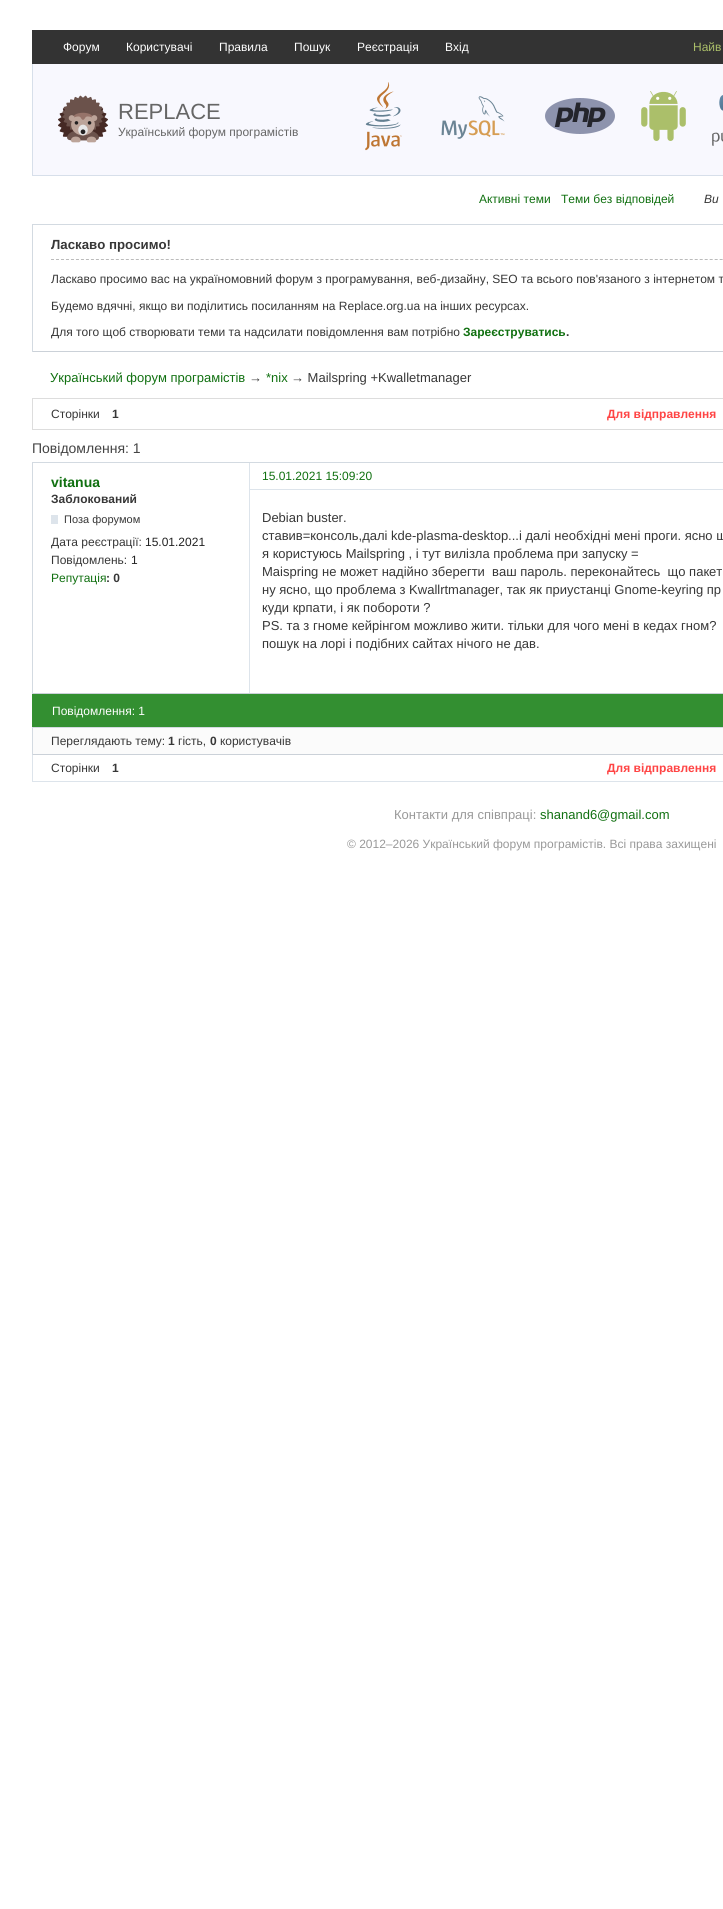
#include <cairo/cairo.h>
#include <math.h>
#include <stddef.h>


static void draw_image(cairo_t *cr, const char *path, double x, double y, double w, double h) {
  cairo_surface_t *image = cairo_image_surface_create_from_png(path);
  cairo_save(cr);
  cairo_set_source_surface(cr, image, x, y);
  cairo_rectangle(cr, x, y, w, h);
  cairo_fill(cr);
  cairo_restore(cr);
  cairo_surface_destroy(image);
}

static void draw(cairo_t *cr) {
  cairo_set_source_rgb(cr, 1, 1, 1);
  cairo_paint(cr);
  cairo_set_source_rgb(cr, 215 / 255.0, 223 / 255.0, 234 / 255.0);
  cairo_rectangle(cr, 32, 175, 691, 1);
  cairo_fill(cr);
  cairo_rectangle(cr, 32, 61, 1, 115);
  cairo_fill(cr);
  cairo_set_source_rgb(cr, 51 / 255.0, 51 / 255.0, 51 / 255.0);
  cairo_rectangle(cr, 32, 30, 691, 34);
  cairo_fill(cr);
  cairo_set_source_rgb(cr, 248 / 255.0, 248 / 255.0, 254 / 255.0);
  cairo_rectangle(cr, 33, 64, 690, 111);
  cairo_fill(cr);
  draw_image(cr, "images/1.png", 58, 95, 50, 48);
  draw_image(cr, "images/2.png", 365, 82, 37, 69);
  draw_image(cr, "images/3.png", 441, 96, 64, 43);
  draw_image(cr, "images/4.png", 545, 98, 70, 36);
  draw_image(cr, "images/5.png", 641, 91, 45, 50);
  draw_image(cr, "images/6.png", 712, 95, 11, 51);
  cairo_set_source_rgb(cr, 211 / 255.0, 218 / 255.0, 225 / 255.0);
  cairo_rectangle(cr, 32, 224, 691, 1);
  cairo_fill(cr);
  cairo_set_source_rgb(cr, 203 / 255.0, 209 / 255.0, 216 / 255.0);
  cairo_rectangle(cr, 32, 351, 691, 1);
  cairo_fill(cr);
  cairo_set_source_rgb(cr, 211 / 255.0, 218 / 255.0, 225 / 255.0);
  cairo_rectangle(cr, 32, 224, 1, 128);
  cairo_fill(cr);
  cairo_new_path(cr);
  cairo_move_to(cr, 51, 259.5);
  cairo_line_to(cr, 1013, 259.5);
  cairo_set_source_rgb(cr, 187 / 255.0, 187 / 255.0, 187 / 255.0);
  cairo_set_line_width(cr, 1);
  cairo_set_dash(cr, (double[]){3, 1.99}, 2, 0);
  cairo_stroke(cr);
  cairo_rectangle(cr, 32.5, 398.5, 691, 31);
  cairo_set_source_rgb(cr, 221 / 255.0, 221 / 255.0, 221 / 255.0);
  cairo_set_dash(cr, NULL, 0, 0);
  cairo_stroke(cr);
  cairo_set_source_rgb(cr, 211 / 255.0, 218 / 255.0, 225 / 255.0);
  cairo_rectangle(cr, 32, 462, 691, 1);
  cairo_fill(cr);
  cairo_set_source_rgb(cr, 203 / 255.0, 209 / 255.0, 216 / 255.0);
  cairo_rectangle(cr, 32, 693, 691, 1);
  cairo_fill(cr);
  cairo_set_source_rgb(cr, 211 / 255.0, 218 / 255.0, 225 / 255.0);
  cairo_rectangle(cr, 32, 462, 1, 232);
  cairo_fill(cr);
  cairo_set_source_rgb(cr, 221 / 255.0, 228 / 255.0, 235 / 255.0);
  cairo_rectangle(cr, 249, 463, 1, 230);
  cairo_fill(cr);
  cairo_rectangle(cr, 250, 489, 473, 1);
  cairo_fill(cr);
  cairo_rectangle(cr, 51, 515, 7, 9);
  cairo_fill(cr);
  cairo_set_source_rgb(cr, 51 / 255.0, 143 / 255.0, 49 / 255.0);
  cairo_rectangle(cr, 32, 694, 691, 33);
  cairo_fill(cr);
  cairo_set_source_rgb(cr, 251 / 255.0, 251 / 255.0, 251 / 255.0);
  cairo_rectangle(cr, 33, 728, 690, 26);
  cairo_fill(cr);
  cairo_set_source_rgb(cr, 211 / 255.0, 218 / 255.0, 225 / 255.0);
  cairo_rectangle(cr, 32, 727, 691, 1);
  cairo_fill(cr);
  cairo_set_source_rgb(cr, 203 / 255.0, 209 / 255.0, 216 / 255.0);
  cairo_rectangle(cr, 32, 754, 691, 1);
  cairo_fill(cr);
  cairo_set_source_rgb(cr, 211 / 255.0, 218 / 255.0, 225 / 255.0);
  cairo_rectangle(cr, 32, 727, 1, 28);
  cairo_fill(cr);
  cairo_set_source_rgb(cr, 221 / 255.0, 228 / 255.0, 235 / 255.0);
  cairo_rectangle(cr, 32, 781, 691, 1);
  cairo_fill(cr);
  cairo_rectangle(cr, 32, 755, 1, 27);
  cairo_fill(cr);
  cairo_select_font_face(cr, "Liberation Sans", CAIRO_FONT_SLANT_NORMAL, CAIRO_FONT_WEIGHT_NORMAL);
  cairo_set_font_size(cr, 12);
  cairo_set_source_rgb(cr, 1, 1, 1);
  cairo_move_to(cr, 63, 51);
  cairo_show_text(cr, "Форум");
  cairo_move_to(cr, 126, 51);
  cairo_show_text(cr, "Користувачі");
  cairo_move_to(cr, 219, 51);
  cairo_show_text(cr, "Правила");
  cairo_move_to(cr, 294, 51);
  cairo_show_text(cr, "Пошук");
  cairo_move_to(cr, 357, 51);
  cairo_show_text(cr, "Реєстрація");
  cairo_move_to(cr, 445, 51);
  cairo_show_text(cr, "Вхід");
  cairo_set_source_rgb(cr, 171 / 255.0, 191 / 255.0, 105 / 255.0);
  cairo_move_to(cr, 693, 51);
  cairo_show_text(cr, "Найв");
  cairo_set_font_size(cr, 22);
  cairo_set_source_rgb(cr, 102 / 255.0, 102 / 255.0, 102 / 255.0);
  cairo_move_to(cr, 118, 119);
  cairo_show_text(cr, "REPLACE");
  cairo_set_font_size(cr, 12);
  cairo_move_to(cr, 118, 136);
  cairo_show_text(cr, "Український форум програмістів");
  cairo_set_source_rgb(cr, 16 / 255.0, 112 / 255.0, 16 / 255.0);
  cairo_move_to(cr, 479, 203);
  cairo_show_text(cr, "Активні теми");
  cairo_move_to(cr, 561, 203);
  cairo_show_text(cr, "Теми без відповідей");
  cairo_select_font_face(cr, "Liberation Sans", CAIRO_FONT_SLANT_ITALIC, CAIRO_FONT_WEIGHT_NORMAL);
  cairo_set_source_rgb(cr, 55 / 255.0, 55 / 255.0, 55 / 255.0);
  cairo_move_to(cr, 704, 203);
  cairo_show_text(cr, "Ви");
  cairo_select_font_face(cr, "Liberation Sans", CAIRO_FONT_SLANT_NORMAL, CAIRO_FONT_WEIGHT_BOLD);
  cairo_set_font_size(cr, 13.25);
  cairo_move_to(cr, 51, 249);
  cairo_show_text(cr, "Ласкаво просимо!");
  cairo_select_font_face(cr, "Liberation Sans", CAIRO_FONT_SLANT_NORMAL, CAIRO_FONT_WEIGHT_NORMAL);
  cairo_set_font_size(cr, 12);
  cairo_move_to(cr, 51, 283);
  cairo_show_text(cr, "Ласкаво просимо вас на україномовний форум з програмування, веб-дизайну, SEO та всього пов'язаного з інтернетом т");
  cairo_move_to(cr, 51, 310);
  cairo_show_text(cr, "Будемо вдячні, якщо ви поділитись посиланням на Replace.org.ua на інших ресурсах.");
  cairo_move_to(cr, 51, 336);
  cairo_show_text(cr, "Для того щоб створювати теми та надсилати повідомлення вам потрібно");
  cairo_select_font_face(cr, "Liberation Sans", CAIRO_FONT_SLANT_NORMAL, CAIRO_FONT_WEIGHT_BOLD);
  cairo_set_source_rgb(cr, 16 / 255.0, 112 / 255.0, 16 / 255.0);
  cairo_move_to(cr, 463, 336);
  cairo_show_text(cr, "Зареєструватись");
  cairo_set_source_rgb(cr, 55 / 255.0, 55 / 255.0, 55 / 255.0);
  cairo_move_to(cr, 566, 336);
  cairo_show_text(cr, ".");
  cairo_select_font_face(cr, "Liberation Sans", CAIRO_FONT_SLANT_NORMAL, CAIRO_FONT_WEIGHT_NORMAL);
  cairo_set_font_size(cr, 13);
  cairo_set_source_rgb(cr, 16 / 255.0, 112 / 255.0, 16 / 255.0);
  cairo_move_to(cr, 50, 382);
  cairo_show_text(cr, "Український форум програмістів");
  cairo_set_source_rgb(cr, 55 / 255.0, 55 / 255.0, 55 / 255.0);
  cairo_move_to(cr, 249, 382);
  cairo_show_text(cr, "→");
  cairo_set_source_rgb(cr, 16 / 255.0, 112 / 255.0, 16 / 255.0);
  cairo_move_to(cr, 266, 382);
  cairo_show_text(cr, "*nix");
  cairo_set_source_rgb(cr, 55 / 255.0, 55 / 255.0, 55 / 255.0);
  cairo_move_to(cr, 291, 382);
  cairo_show_text(cr, "→ Mailspring +Kwalletmanager");
  cairo_set_font_size(cr, 12);
  cairo_move_to(cr, 51, 418);
  cairo_show_text(cr, "Сторінки");
  cairo_select_font_face(cr, "Liberation Sans", CAIRO_FONT_SLANT_NORMAL, CAIRO_FONT_WEIGHT_BOLD);
  cairo_move_to(cr, 112, 418);
  cairo_show_text(cr, "1");
  cairo_set_source_rgb(cr, 1, 68 / 255.0, 68 / 255.0);
  cairo_move_to(cr, 607, 418);
  cairo_show_text(cr, "Для відправлення");
  cairo_select_font_face(cr, "Liberation Sans", CAIRO_FONT_SLANT_NORMAL, CAIRO_FONT_WEIGHT_NORMAL);
  cairo_set_font_size(cr, 14);
  cairo_set_source_rgb(cr, 68 / 255.0, 68 / 255.0, 68 / 255.0);
  cairo_move_to(cr, 32, 453);
  cairo_show_text(cr, "Повідомлення: 1");
  cairo_select_font_face(cr, "Liberation Sans", CAIRO_FONT_SLANT_NORMAL, CAIRO_FONT_WEIGHT_BOLD);
  cairo_set_source_rgb(cr, 16 / 255.0, 112 / 255.0, 16 / 255.0);
  cairo_move_to(cr, 51, 487);
  cairo_show_text(cr, "vitanua");
  cairo_select_font_face(cr, "Liberation Sans", CAIRO_FONT_SLANT_NORMAL, CAIRO_FONT_WEIGHT_NORMAL);
  cairo_set_font_size(cr, 12);
  cairo_move_to(cr, 262, 480);
  cairo_show_text(cr, "15.01.2021 15:09:20");
  cairo_select_font_face(cr, "Liberation Sans", CAIRO_FONT_SLANT_NORMAL, CAIRO_FONT_WEIGHT_BOLD);
  cairo_set_source_rgb(cr, 55 / 255.0, 55 / 255.0, 55 / 255.0);
  cairo_move_to(cr, 51, 503);
  cairo_show_text(cr, "Заблокований");
  cairo_select_font_face(cr, "Liberation Sans", CAIRO_FONT_SLANT_NORMAL, CAIRO_FONT_WEIGHT_NORMAL);
  cairo_set_font_size(cr, 11);
  cairo_move_to(cr, 64, 523);
  cairo_show_text(cr, "Поза форумом");
  cairo_set_font_size(cr, 12);
  cairo_move_to(cr, 51, 546);
  cairo_show_text(cr, "Дата реєстрації:");
  cairo_set_source_rgb(cr, 34 / 255.0, 34 / 255.0, 34 / 255.0);
  cairo_move_to(cr, 145, 546);
  cairo_show_text(cr, "15.01.2021");
  cairo_set_source_rgb(cr, 55 / 255.0, 55 / 255.0, 55 / 255.0);
  cairo_move_to(cr, 51, 564);
  cairo_show_text(cr, "Повідомлень:");
  cairo_set_source_rgb(cr, 34 / 255.0, 34 / 255.0, 34 / 255.0);
  cairo_move_to(cr, 131, 564);
  cairo_show_text(cr, "1");
  cairo_set_source_rgb(cr, 16 / 255.0, 112 / 255.0, 16 / 255.0);
  cairo_move_to(cr, 51, 582);
  cairo_show_text(cr, "Репутація");
  cairo_select_font_face(cr, "Liberation Sans", CAIRO_FONT_SLANT_NORMAL, CAIRO_FONT_WEIGHT_BOLD);
  cairo_set_source_rgb(cr, 55 / 255.0, 55 / 255.0, 55 / 255.0);
  cairo_move_to(cr, 106, 582);
  cairo_show_text(cr, ": 0");
  cairo_select_font_face(cr, "Liberation Sans", CAIRO_FONT_SLANT_NORMAL, CAIRO_FONT_WEIGHT_NORMAL);
  cairo_set_font_size(cr, 13);
  cairo_move_to(cr, 262, 522);
  cairo_show_text(cr, "Debian buster.");
  cairo_move_to(cr, 262, 540);
  cairo_show_text(cr, "ставив=консоль,далі kde-plasma-desktop...і далі необхідні мені проги. ясно щ");
  cairo_move_to(cr, 262, 558);
  cairo_show_text(cr, "я користуюсь Mailspring , і тут вилізла проблема при запуску =");
  cairo_move_to(cr, 262, 576);
  cairo_show_text(cr, "Maispring не может надійно зберегти  ваш пароль. переконайтесь  що пакет");
  cairo_move_to(cr, 262, 594);
  cairo_show_text(cr, "ну ясно, що проблема з Kwallrtmanager, так як приустанці Gnome-keyring пр");
  cairo_move_to(cr, 262, 612);
  cairo_show_text(cr, "куди крпати, і як побороти ?");
  cairo_move_to(cr, 262, 630);
  cairo_show_text(cr, "PS. та з гноме кейрінгом можливо жити. тільки для чого мені в кедах гном?");
  cairo_move_to(cr, 262, 648);
  cairo_show_text(cr, "пошук на лорі і подібних сайтах нічого не дав.");
  cairo_set_font_size(cr, 12);
  cairo_set_source_rgb(cr, 1, 1, 1);
  cairo_move_to(cr, 52, 715);
  cairo_show_text(cr, "Повідомлення: 1");
  cairo_set_source_rgb(cr, 55 / 255.0, 55 / 255.0, 55 / 255.0);
  cairo_move_to(cr, 51, 745);
  cairo_show_text(cr, "Переглядають тему:");
  cairo_select_font_face(cr, "Liberation Sans", CAIRO_FONT_SLANT_NORMAL, CAIRO_FONT_WEIGHT_BOLD);
  cairo_move_to(cr, 168, 745);
  cairo_show_text(cr, "1");
  cairo_select_font_face(cr, "Liberation Sans", CAIRO_FONT_SLANT_NORMAL, CAIRO_FONT_WEIGHT_NORMAL);
  cairo_move_to(cr, 178, 745);
  cairo_show_text(cr, "гість,");
  cairo_select_font_face(cr, "Liberation Sans", CAIRO_FONT_SLANT_NORMAL, CAIRO_FONT_WEIGHT_BOLD);
  cairo_move_to(cr, 210, 745);
  cairo_show_text(cr, "0");
  cairo_select_font_face(cr, "Liberation Sans", CAIRO_FONT_SLANT_NORMAL, CAIRO_FONT_WEIGHT_NORMAL);
  cairo_move_to(cr, 220, 745);
  cairo_show_text(cr, "користувачів");
  cairo_move_to(cr, 51, 772);
  cairo_show_text(cr, "Сторінки");
  cairo_select_font_face(cr, "Liberation Sans", CAIRO_FONT_SLANT_NORMAL, CAIRO_FONT_WEIGHT_BOLD);
  cairo_move_to(cr, 112, 772);
  cairo_show_text(cr, "1");
  cairo_set_source_rgb(cr, 1, 68 / 255.0, 68 / 255.0);
  cairo_move_to(cr, 607, 772);
  cairo_show_text(cr, "Для відправлення");
  cairo_select_font_face(cr, "Liberation Sans", CAIRO_FONT_SLANT_NORMAL, CAIRO_FONT_WEIGHT_NORMAL);
  cairo_set_font_size(cr, 13);
  cairo_set_source_rgb(cr, 153 / 255.0, 153 / 255.0, 153 / 255.0);
  cairo_move_to(cr, 394, 819);
  cairo_show_text(cr, "Контакти для співпраці:");
  cairo_set_source_rgb(cr, 16 / 255.0, 112 / 255.0, 16 / 255.0);
  cairo_move_to(cr, 540, 819);
  cairo_show_text(cr, "shanand6@gmail.com");
  cairo_set_font_size(cr, 12);
  cairo_set_source_rgb(cr, 153 / 255.0, 153 / 255.0, 153 / 255.0);
  cairo_move_to(cr, 347, 848);
  cairo_show_text(cr, "© 2012–2026 Український форум програмістів. Всі права захищені");
}

int main(void) {
  cairo_surface_t *surface = cairo_image_surface_create(CAIRO_FORMAT_RGB24, 723, 1909);
  cairo_t *cr = cairo_create(surface);
  cairo_font_options_t *options = cairo_font_options_create();
  cairo_font_options_set_hint_metrics(options, CAIRO_HINT_METRICS_OFF);
  cairo_font_options_set_hint_style(options, CAIRO_HINT_STYLE_NONE);
  cairo_set_font_options(cr, options);
  cairo_set_miter_limit(cr, 4);
  draw(cr);
  cairo_surface_write_to_png(surface, "out.png");
  cairo_font_options_destroy(options);
  cairo_destroy(cr);
  cairo_surface_destroy(surface);
  return 0;
}
